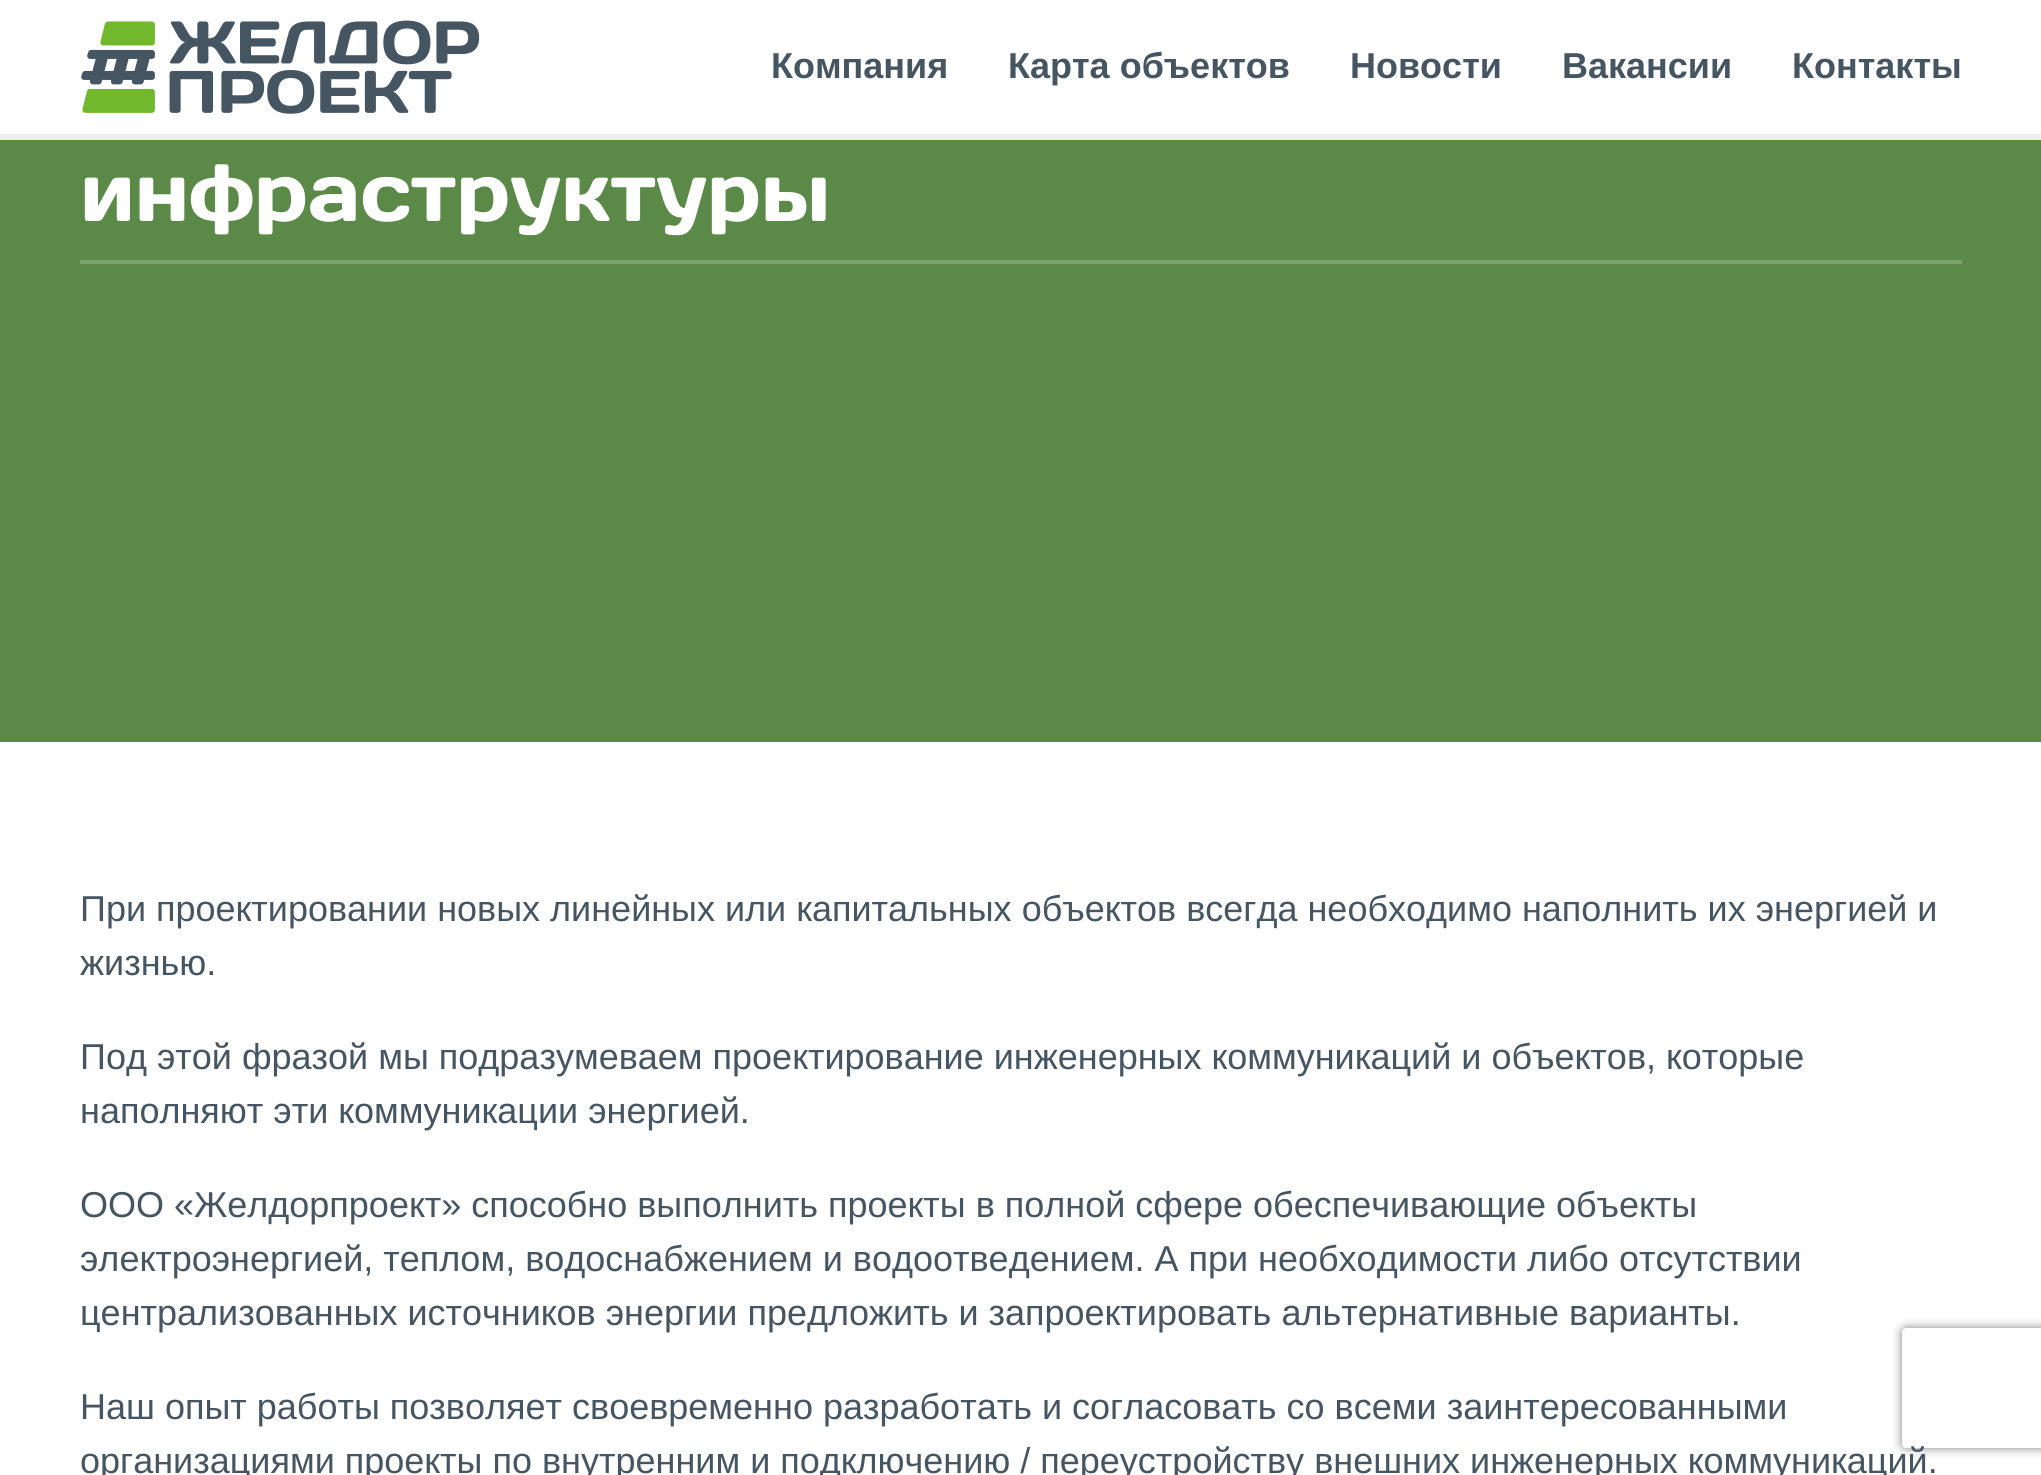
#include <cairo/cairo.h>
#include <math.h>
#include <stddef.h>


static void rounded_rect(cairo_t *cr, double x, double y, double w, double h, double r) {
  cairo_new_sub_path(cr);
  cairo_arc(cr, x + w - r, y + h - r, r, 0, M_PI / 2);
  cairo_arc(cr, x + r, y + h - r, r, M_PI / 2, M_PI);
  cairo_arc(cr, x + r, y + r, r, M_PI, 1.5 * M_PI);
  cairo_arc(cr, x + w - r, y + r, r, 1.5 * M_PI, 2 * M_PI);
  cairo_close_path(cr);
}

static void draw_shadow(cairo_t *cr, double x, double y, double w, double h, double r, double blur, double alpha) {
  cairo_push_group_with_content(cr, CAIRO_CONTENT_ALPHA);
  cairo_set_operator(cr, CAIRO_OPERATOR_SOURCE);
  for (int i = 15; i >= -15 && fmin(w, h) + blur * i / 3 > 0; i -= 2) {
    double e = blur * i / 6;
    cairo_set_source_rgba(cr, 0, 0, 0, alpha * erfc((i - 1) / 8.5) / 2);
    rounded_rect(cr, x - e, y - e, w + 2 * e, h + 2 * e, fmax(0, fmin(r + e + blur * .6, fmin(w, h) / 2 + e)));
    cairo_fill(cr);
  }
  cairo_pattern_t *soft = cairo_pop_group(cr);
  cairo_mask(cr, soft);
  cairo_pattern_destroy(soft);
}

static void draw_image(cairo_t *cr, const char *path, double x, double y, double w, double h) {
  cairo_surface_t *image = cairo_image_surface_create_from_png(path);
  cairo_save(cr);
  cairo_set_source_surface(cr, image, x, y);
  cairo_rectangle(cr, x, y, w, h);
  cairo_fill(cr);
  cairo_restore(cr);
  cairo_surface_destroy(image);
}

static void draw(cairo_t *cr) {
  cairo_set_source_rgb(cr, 1, 1, 1);
  cairo_paint(cr);
  cairo_set_source_rgb(cr, 236 / 255.0, 238 / 255.0, 239 / 255.0);
  cairo_rectangle(cr, 0, 134, 2041, 6);
  cairo_fill(cr);
  draw_image(cr, "images/1.png", 81, 20, 399, 94);
  cairo_set_source_rgb(cr, 91 / 255.0, 137 / 255.0, 71 / 255.0);
  cairo_rectangle(cr, 0, 140, 2041, 602);
  cairo_fill(cr);
  cairo_set_source_rgb(cr, 124 / 255.0, 161 / 255.0, 108 / 255.0);
  cairo_rectangle(cr, 80, 260, 1882, 4);
  cairo_fill(cr);
  cairo_save(cr);
  cairo_set_fill_rule(cr, CAIRO_FILL_RULE_EVEN_ODD);
  cairo_new_path(cr);
  cairo_move_to(cr, 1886, 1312);
  cairo_line_to(cr, 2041, 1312);
  cairo_line_to(cr, 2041, 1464);
  cairo_line_to(cr, 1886, 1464);
  cairo_close_path(cr);
  cairo_move_to(cr, 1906, 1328);
  cairo_line_to(cr, 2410, 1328);
  cairo_curve_to(cr, 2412, 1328, 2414, 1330, 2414, 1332);
  cairo_line_to(cr, 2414, 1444);
  cairo_curve_to(cr, 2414, 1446, 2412, 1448, 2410, 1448);
  cairo_line_to(cr, 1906, 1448);
  cairo_curve_to(cr, 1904, 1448, 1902, 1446, 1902, 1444);
  cairo_line_to(cr, 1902, 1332);
  cairo_curve_to(cr, 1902, 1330, 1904, 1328, 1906, 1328);
  cairo_close_path(cr);
  cairo_clip(cr);
  cairo_set_source_rgb(cr, 128 / 255.0, 128 / 255.0, 128 / 255.0);
  draw_shadow(cr, 1902, 1328, 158, 120, 4, 5, 1);
  cairo_restore(cr);
  cairo_select_font_face(cr, "Liberation Sans", CAIRO_FONT_SLANT_NORMAL, CAIRO_FONT_WEIGHT_BOLD);
  cairo_set_font_size(cr, 36);
  cairo_set_source_rgb(cr, 70 / 255.0, 85 / 255.0, 98 / 255.0);
  cairo_move_to(cr, 771, 78);
  cairo_show_text(cr, "Компания");
  cairo_move_to(cr, 1008, 78);
  cairo_show_text(cr, "Карта объектов");
  cairo_move_to(cr, 1350, 78);
  cairo_show_text(cr, "Новости");
  cairo_move_to(cr, 1562, 78);
  cairo_show_text(cr, "Вакансии");
  cairo_move_to(cr, 1792, 78);
  cairo_show_text(cr, "Контакты");
  cairo_select_font_face(cr, "Days One", CAIRO_FONT_SLANT_NORMAL, CAIRO_FONT_WEIGHT_NORMAL);
  cairo_set_font_size(cr, 81);
  cairo_set_source_rgb(cr, 1, 1, 1);
  cairo_move_to(cr, 80, 221);
  cairo_show_text(cr, "инфраструктуры");
  cairo_select_font_face(cr, "Liberation Sans", CAIRO_FONT_SLANT_NORMAL, CAIRO_FONT_WEIGHT_NORMAL);
  cairo_set_font_size(cr, 36);
  cairo_set_source_rgb(cr, 70 / 255.0, 85 / 255.0, 98 / 255.0);
  cairo_move_to(cr, 80, 921);
  cairo_show_text(cr, "При проектировании новых линейных или капитальных объектов всегда необходимо наполнить их энергией и");
  cairo_move_to(cr, 80, 975);
  cairo_show_text(cr, "жизнью.");
  cairo_move_to(cr, 80, 1069);
  cairo_show_text(cr, "Под этой фразой мы подразумеваем проектирование инженерных коммуникаций и объектов, которые");
  cairo_move_to(cr, 80, 1123);
  cairo_show_text(cr, "наполняют эти коммуникации энергией.");
  cairo_move_to(cr, 80, 1217);
  cairo_show_text(cr, "ООО «Желдорпроект» способно выполнить проекты в полной сфере обеспечивающие объекты");
  cairo_move_to(cr, 80, 1271);
  cairo_show_text(cr, "электроэнергией, теплом, водоснабжением и водоотведением. А при необходимости либо отсутствии");
  cairo_move_to(cr, 80, 1325);
  cairo_show_text(cr, "централизованных источников энергии предложить и запроектировать альтернативные варианты.");
  cairo_move_to(cr, 80, 1419);
  cairo_show_text(cr, "Наш опыт работы позволяет своевременно разработать и согласовать со всеми заинтересованными");
  cairo_move_to(cr, 80, 1473);
  cairo_show_text(cr, "организациями проекты по внутренним и подключению / переустройству внешних инженерных коммуникаций.");
}

int main(void) {
  cairo_surface_t *surface = cairo_image_surface_create(CAIRO_FORMAT_RGB24, 2041, 1475);
  cairo_t *cr = cairo_create(surface);
  cairo_font_options_t *options = cairo_font_options_create();
  cairo_font_options_set_hint_metrics(options, CAIRO_HINT_METRICS_OFF);
  cairo_font_options_set_hint_style(options, CAIRO_HINT_STYLE_NONE);
  cairo_set_font_options(cr, options);
  cairo_set_miter_limit(cr, 4);
  draw(cr);
  cairo_surface_write_to_png(surface, "out.png");
  cairo_font_options_destroy(options);
  cairo_destroy(cr);
  cairo_surface_destroy(surface);
  return 0;
}
